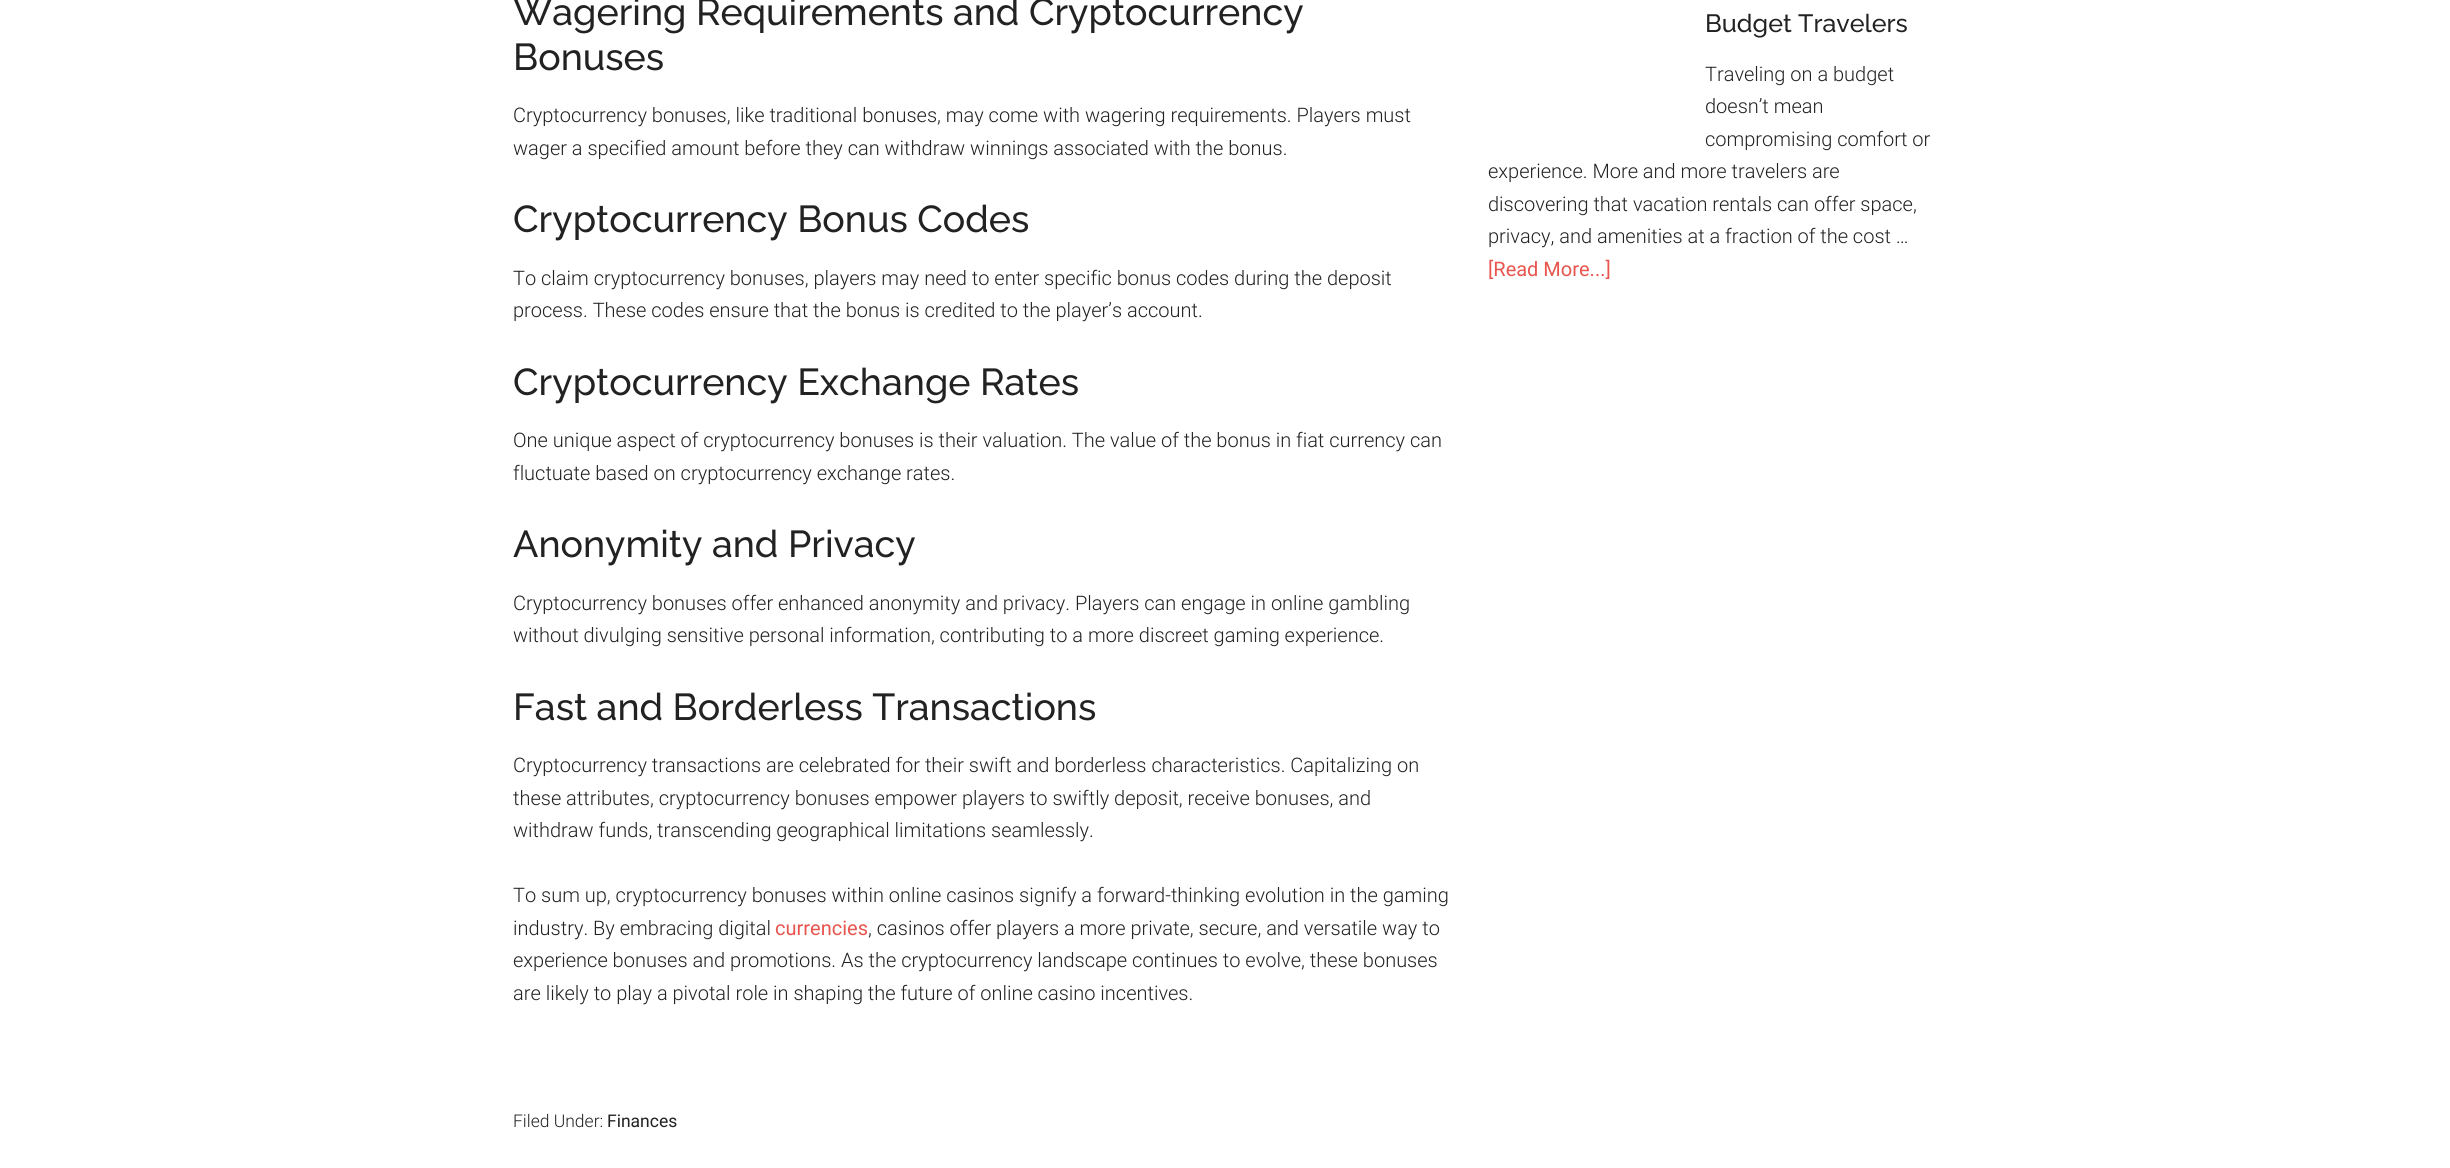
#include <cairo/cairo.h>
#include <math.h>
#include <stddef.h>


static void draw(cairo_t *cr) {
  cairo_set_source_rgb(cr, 1, 1, 1);
  cairo_paint(cr);
  cairo_select_font_face(cr, "Raleway Medium", CAIRO_FONT_SLANT_NORMAL, CAIRO_FONT_WEIGHT_NORMAL);
  cairo_set_font_size(cr, 37.5);
  cairo_set_source_rgb(cr, 34 / 255.0, 34 / 255.0, 34 / 255.0);
  cairo_move_to(cr, 513, 25);
  cairo_show_text(cr, "Wagering Requirements and Cryptocurrency");
  cairo_move_to(cr, 513, 70);
  cairo_show_text(cr, "Bonuses");
  cairo_select_font_face(cr, "Roboto Light", CAIRO_FONT_SLANT_NORMAL, CAIRO_FONT_WEIGHT_NORMAL);
  cairo_set_font_size(cr, 20);
  cairo_move_to(cr, 513, 122);
  cairo_show_text(cr, "Cryptocurrency bonuses, like traditional bonuses, may come with wagering requirements. Players must");
  cairo_move_to(cr, 513, 155);
  cairo_show_text(cr, "wager a specified amount before they can withdraw winnings associated with the bonus.");
  cairo_select_font_face(cr, "Raleway Medium", CAIRO_FONT_SLANT_NORMAL, CAIRO_FONT_WEIGHT_NORMAL);
  cairo_set_font_size(cr, 37.5);
  cairo_move_to(cr, 513, 232);
  cairo_show_text(cr, "Cryptocurrency Bonus Codes");
  cairo_select_font_face(cr, "Roboto Light", CAIRO_FONT_SLANT_NORMAL, CAIRO_FONT_WEIGHT_NORMAL);
  cairo_set_font_size(cr, 20);
  cairo_move_to(cr, 513, 285);
  cairo_show_text(cr, "To claim cryptocurrency bonuses, players may need to enter specific bonus codes during the deposit");
  cairo_move_to(cr, 513, 317);
  cairo_show_text(cr, "process. These codes ensure that the bonus is credited to the player’s account.");
  cairo_select_font_face(cr, "Raleway Medium", CAIRO_FONT_SLANT_NORMAL, CAIRO_FONT_WEIGHT_NORMAL);
  cairo_set_font_size(cr, 37.5);
  cairo_move_to(cr, 513, 395);
  cairo_show_text(cr, "Cryptocurrency Exchange Rates");
  cairo_select_font_face(cr, "Roboto Light", CAIRO_FONT_SLANT_NORMAL, CAIRO_FONT_WEIGHT_NORMAL);
  cairo_set_font_size(cr, 20);
  cairo_move_to(cr, 513, 447);
  cairo_show_text(cr, "One unique aspect of cryptocurrency bonuses is their valuation. The value of the bonus in fiat currency can");
  cairo_move_to(cr, 513, 480);
  cairo_show_text(cr, "fluctuate based on cryptocurrency exchange rates.");
  cairo_select_font_face(cr, "Raleway Medium", CAIRO_FONT_SLANT_NORMAL, CAIRO_FONT_WEIGHT_NORMAL);
  cairo_set_font_size(cr, 37.5);
  cairo_move_to(cr, 513, 557);
  cairo_show_text(cr, "Anonymity and Privacy");
  cairo_select_font_face(cr, "Roboto Light", CAIRO_FONT_SLANT_NORMAL, CAIRO_FONT_WEIGHT_NORMAL);
  cairo_set_font_size(cr, 20);
  cairo_move_to(cr, 513, 610);
  cairo_show_text(cr, "Cryptocurrency bonuses offer enhanced anonymity and privacy. Players can engage in online gambling");
  cairo_move_to(cr, 513, 642);
  cairo_show_text(cr, "without divulging sensitive personal information, contributing to a more discreet gaming experience.");
  cairo_select_font_face(cr, "Raleway Medium", CAIRO_FONT_SLANT_NORMAL, CAIRO_FONT_WEIGHT_NORMAL);
  cairo_set_font_size(cr, 37.5);
  cairo_move_to(cr, 513, 720);
  cairo_show_text(cr, "Fast and Borderless Transactions");
  cairo_select_font_face(cr, "Roboto Light", CAIRO_FONT_SLANT_NORMAL, CAIRO_FONT_WEIGHT_NORMAL);
  cairo_set_font_size(cr, 20);
  cairo_move_to(cr, 513, 772);
  cairo_show_text(cr, "Cryptocurrency transactions are celebrated for their swift and borderless characteristics. Capitalizing on");
  cairo_move_to(cr, 513, 805);
  cairo_show_text(cr, "these attributes, cryptocurrency bonuses empower players to swiftly deposit, receive bonuses, and");
  cairo_move_to(cr, 513, 837);
  cairo_show_text(cr, "withdraw funds, transcending geographical limitations seamlessly.");
  cairo_move_to(cr, 513, 902);
  cairo_show_text(cr, "To sum up, cryptocurrency bonuses within online casinos signify a forward-thinking evolution in the gaming");
  cairo_move_to(cr, 513, 935);
  cairo_show_text(cr, "industry. By embracing digital");
  cairo_select_font_face(cr, "Roboto", CAIRO_FONT_SLANT_NORMAL, CAIRO_FONT_WEIGHT_NORMAL);
  cairo_set_source_rgb(cr, 232 / 255.0, 85 / 255.0, 78 / 255.0);
  cairo_move_to(cr, 775, 935);
  cairo_show_text(cr, "currencies");
  cairo_select_font_face(cr, "Roboto Light", CAIRO_FONT_SLANT_NORMAL, CAIRO_FONT_WEIGHT_NORMAL);
  cairo_set_source_rgb(cr, 34 / 255.0, 34 / 255.0, 34 / 255.0);
  cairo_move_to(cr, 868, 935);
  cairo_show_text(cr, ", casinos offer players a more private, secure, and versatile way to");
  cairo_move_to(cr, 513, 967);
  cairo_show_text(cr, "experience bonuses and promotions. As the cryptocurrency landscape continues to evolve, these bonuses");
  cairo_move_to(cr, 513, 1000);
  cairo_show_text(cr, "are likely to play a pivotal role in shaping the future of online casino incentives.");
  cairo_set_font_size(cr, 17.5);
  cairo_move_to(cr, 513, 1127);
  cairo_show_text(cr, "Filed Under:");
  cairo_select_font_face(cr, "Roboto", CAIRO_FONT_SLANT_NORMAL, CAIRO_FONT_WEIGHT_NORMAL);
  cairo_move_to(cr, 607, 1127);
  cairo_show_text(cr, "Finances");
  cairo_select_font_face(cr, "Raleway Medium", CAIRO_FONT_SLANT_NORMAL, CAIRO_FONT_WEIGHT_NORMAL);
  cairo_set_font_size(cr, 25);
  cairo_move_to(cr, 1705, 32);
  cairo_show_text(cr, "Budget Travelers");
  cairo_select_font_face(cr, "Roboto Light", CAIRO_FONT_SLANT_NORMAL, CAIRO_FONT_WEIGHT_NORMAL);
  cairo_set_font_size(cr, 20);
  cairo_move_to(cr, 1705, 81);
  cairo_show_text(cr, "Traveling on a budget");
  cairo_move_to(cr, 1705, 113);
  cairo_show_text(cr, "doesn’t mean");
  cairo_move_to(cr, 1705, 146);
  cairo_show_text(cr, "compromising comfort or");
  cairo_move_to(cr, 1488, 178);
  cairo_show_text(cr, "experience. More and more travelers are");
  cairo_move_to(cr, 1488, 211);
  cairo_show_text(cr, "discovering that vacation rentals can offer space,");
  cairo_move_to(cr, 1488, 243);
  cairo_show_text(cr, "privacy, and amenities at a fraction of the cost …");
  cairo_select_font_face(cr, "Roboto", CAIRO_FONT_SLANT_NORMAL, CAIRO_FONT_WEIGHT_NORMAL);
  cairo_set_source_rgb(cr, 232 / 255.0, 85 / 255.0, 78 / 255.0);
  cairo_move_to(cr, 1488, 276);
  cairo_show_text(cr, "[Read More...]");
}

int main(void) {
  cairo_surface_t *surface = cairo_image_surface_create(CAIRO_FORMAT_RGB24, 2450, 1168);
  cairo_t *cr = cairo_create(surface);
  cairo_font_options_t *options = cairo_font_options_create();
  cairo_font_options_set_hint_metrics(options, CAIRO_HINT_METRICS_OFF);
  cairo_font_options_set_hint_style(options, CAIRO_HINT_STYLE_NONE);
  cairo_set_font_options(cr, options);
  cairo_set_miter_limit(cr, 4);
  draw(cr);
  cairo_surface_write_to_png(surface, "out.png");
  cairo_font_options_destroy(options);
  cairo_destroy(cr);
  cairo_surface_destroy(surface);
  return 0;
}
